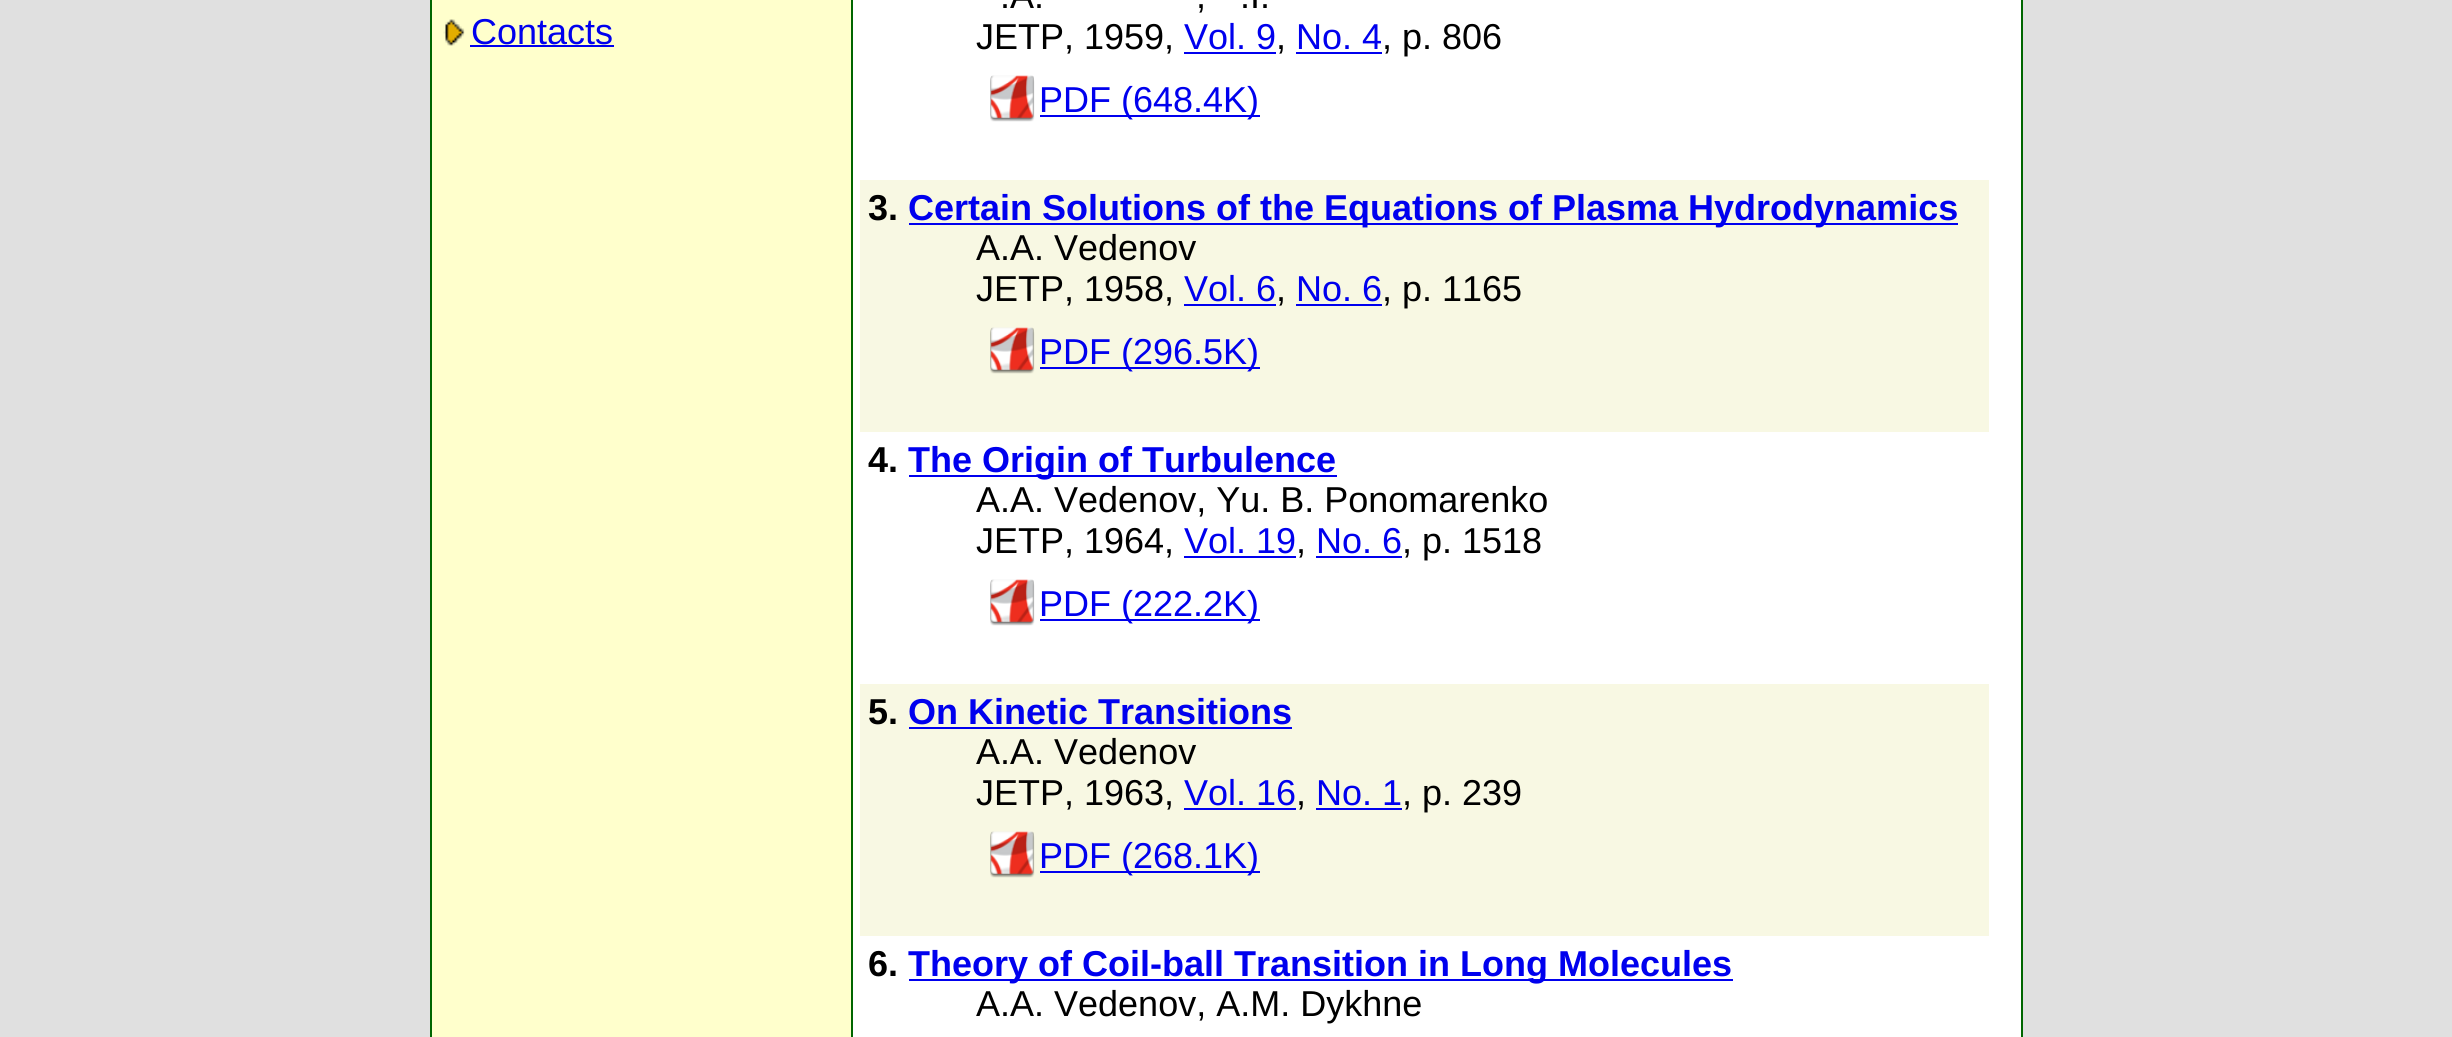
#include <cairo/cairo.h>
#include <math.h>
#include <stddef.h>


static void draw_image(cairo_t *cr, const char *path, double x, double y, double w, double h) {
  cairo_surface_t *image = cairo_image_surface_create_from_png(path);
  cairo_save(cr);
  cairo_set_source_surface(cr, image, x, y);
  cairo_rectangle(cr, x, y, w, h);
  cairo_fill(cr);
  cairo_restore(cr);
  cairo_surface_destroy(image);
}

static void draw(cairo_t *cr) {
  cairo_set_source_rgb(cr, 224 / 255.0, 224 / 255.0, 224 / 255.0);
  cairo_paint(cr);
  cairo_set_source_rgb(cr, 0, 102 / 255.0, 0);
  cairo_rectangle(cr, 430, 0, 1593, 1037);
  cairo_fill(cr);
  cairo_set_source_rgb(cr, 1, 1, 1);
  cairo_rectangle(cr, 853, 0, 1168, 1037);
  cairo_fill(cr);
  cairo_set_source_rgb(cr, 1, 1, 204 / 255.0);
  cairo_rectangle(cr, 432, 0, 419, 1037);
  cairo_fill(cr);
  draw_image(cr, "images/1.png", 443, 19, 22, 27);
  cairo_set_source_rgb(cr, 0, 0, 238 / 255.0);
  cairo_rectangle(cr, 470, 45, 144, 2);
  cairo_fill(cr);
  cairo_rectangle(cr, 1184, 52, 92, 2);
  cairo_fill(cr);
  cairo_rectangle(cr, 1296, 52, 86, 2);
  cairo_fill(cr);
  draw_image(cr, "images/2.png", 990, 75, 45, 47);
  cairo_rectangle(cr, 1040, 115, 220, 2);
  cairo_fill(cr);
  cairo_set_source_rgb(cr, 248 / 255.0, 248 / 255.0, 227 / 255.0);
  cairo_rectangle(cr, 860, 180, 1129, 252);
  cairo_fill(cr);
  cairo_set_source_rgb(cr, 0, 0, 238 / 255.0);
  cairo_rectangle(cr, 909, 223, 1049, 2);
  cairo_fill(cr);
  cairo_rectangle(cr, 1184, 304, 92, 2);
  cairo_fill(cr);
  cairo_rectangle(cr, 1296, 304, 86, 2);
  cairo_fill(cr);
  draw_image(cr, "images/3.png", 990, 327, 45, 47);
  cairo_rectangle(cr, 1040, 367, 220, 2);
  cairo_fill(cr);
  cairo_rectangle(cr, 909, 475, 428, 2);
  cairo_fill(cr);
  cairo_rectangle(cr, 1184, 556, 112, 2);
  cairo_fill(cr);
  cairo_rectangle(cr, 1316, 556, 86, 2);
  cairo_fill(cr);
  draw_image(cr, "images/2.png", 990, 579, 45, 47);
  cairo_rectangle(cr, 1040, 619, 220, 2);
  cairo_fill(cr);
  cairo_set_source_rgb(cr, 248 / 255.0, 248 / 255.0, 227 / 255.0);
  cairo_rectangle(cr, 860, 684, 1129, 252);
  cairo_fill(cr);
  cairo_set_source_rgb(cr, 0, 0, 238 / 255.0);
  cairo_rectangle(cr, 909, 727, 383, 2);
  cairo_fill(cr);
  cairo_rectangle(cr, 1184, 808, 112, 2);
  cairo_fill(cr);
  cairo_rectangle(cr, 1316, 808, 86, 2);
  cairo_fill(cr);
  draw_image(cr, "images/3.png", 990, 831, 45, 47);
  cairo_rectangle(cr, 1040, 871, 220, 2);
  cairo_fill(cr);
  cairo_rectangle(cr, 909, 979, 824, 2);
  cairo_fill(cr);
  cairo_select_font_face(cr, "Liberation Sans", CAIRO_FONT_SLANT_NORMAL, CAIRO_FONT_WEIGHT_NORMAL);
  cairo_set_font_size(cr, 36);
  cairo_move_to(cr, 471, 44);
  cairo_show_text(cr, "Contacts");
  cairo_set_source_rgb(cr, 0, 0, 0);
  cairo_move_to(cr, 1000, 8);
  cairo_show_text(cr, ".A.");
  cairo_move_to(cr, 1196, 8);
  cairo_show_text(cr, ",");
  cairo_move_to(cr, 1240, 8);
  cairo_show_text(cr, ".I.");
  cairo_move_to(cr, 976, 49);
  cairo_show_text(cr, "JETP, 1959,");
  cairo_set_source_rgb(cr, 0, 0, 238 / 255.0);
  cairo_move_to(cr, 1184, 49);
  cairo_show_text(cr, "Vol. 9");
  cairo_set_source_rgb(cr, 0, 0, 0);
  cairo_move_to(cr, 1276, 49);
  cairo_show_text(cr, ",");
  cairo_set_source_rgb(cr, 0, 0, 238 / 255.0);
  cairo_move_to(cr, 1296, 49);
  cairo_show_text(cr, "No. 4");
  cairo_set_source_rgb(cr, 0, 0, 0);
  cairo_move_to(cr, 1382, 49);
  cairo_show_text(cr, ", p. 806");
  cairo_set_source_rgb(cr, 0, 0, 238 / 255.0);
  cairo_move_to(cr, 1039, 112);
  cairo_show_text(cr, "PDF (648.4K)");
  cairo_select_font_face(cr, "Liberation Sans", CAIRO_FONT_SLANT_NORMAL, CAIRO_FONT_WEIGHT_BOLD);
  cairo_set_source_rgb(cr, 0, 0, 0);
  cairo_move_to(cr, 868, 220);
  cairo_show_text(cr, "3.");
  cairo_set_source_rgb(cr, 0, 0, 238 / 255.0);
  cairo_move_to(cr, 908, 220);
  cairo_show_text(cr, "Certain Solutions of the Equations of Plasma Hydrodynamics");
  cairo_select_font_face(cr, "Liberation Sans", CAIRO_FONT_SLANT_NORMAL, CAIRO_FONT_WEIGHT_NORMAL);
  cairo_set_source_rgb(cr, 0, 0, 0);
  cairo_move_to(cr, 976, 260);
  cairo_show_text(cr, "A.A. Vedenov");
  cairo_move_to(cr, 976, 301);
  cairo_show_text(cr, "JETP, 1958,");
  cairo_set_source_rgb(cr, 0, 0, 238 / 255.0);
  cairo_move_to(cr, 1184, 301);
  cairo_show_text(cr, "Vol. 6");
  cairo_set_source_rgb(cr, 0, 0, 0);
  cairo_move_to(cr, 1276, 301);
  cairo_show_text(cr, ",");
  cairo_set_source_rgb(cr, 0, 0, 238 / 255.0);
  cairo_move_to(cr, 1296, 301);
  cairo_show_text(cr, "No. 6");
  cairo_set_source_rgb(cr, 0, 0, 0);
  cairo_move_to(cr, 1382, 301);
  cairo_show_text(cr, ", p. 1165");
  cairo_set_source_rgb(cr, 0, 0, 238 / 255.0);
  cairo_move_to(cr, 1039, 364);
  cairo_show_text(cr, "PDF (296.5K)");
  cairo_select_font_face(cr, "Liberation Sans", CAIRO_FONT_SLANT_NORMAL, CAIRO_FONT_WEIGHT_BOLD);
  cairo_set_source_rgb(cr, 0, 0, 0);
  cairo_move_to(cr, 868, 472);
  cairo_show_text(cr, "4.");
  cairo_set_source_rgb(cr, 0, 0, 238 / 255.0);
  cairo_move_to(cr, 908, 472);
  cairo_show_text(cr, "The Origin of Turbulence");
  cairo_select_font_face(cr, "Liberation Sans", CAIRO_FONT_SLANT_NORMAL, CAIRO_FONT_WEIGHT_NORMAL);
  cairo_set_source_rgb(cr, 0, 0, 0);
  cairo_move_to(cr, 976, 512);
  cairo_show_text(cr, "A.A. Vedenov, Yu. B. Ponomarenko");
  cairo_move_to(cr, 976, 553);
  cairo_show_text(cr, "JETP, 1964,");
  cairo_set_source_rgb(cr, 0, 0, 238 / 255.0);
  cairo_move_to(cr, 1184, 553);
  cairo_show_text(cr, "Vol. 19");
  cairo_set_source_rgb(cr, 0, 0, 0);
  cairo_move_to(cr, 1296, 553);
  cairo_show_text(cr, ",");
  cairo_set_source_rgb(cr, 0, 0, 238 / 255.0);
  cairo_move_to(cr, 1316, 553);
  cairo_show_text(cr, "No. 6");
  cairo_set_source_rgb(cr, 0, 0, 0);
  cairo_move_to(cr, 1402, 553);
  cairo_show_text(cr, ", p. 1518");
  cairo_set_source_rgb(cr, 0, 0, 238 / 255.0);
  cairo_move_to(cr, 1039, 616);
  cairo_show_text(cr, "PDF (222.2K)");
  cairo_select_font_face(cr, "Liberation Sans", CAIRO_FONT_SLANT_NORMAL, CAIRO_FONT_WEIGHT_BOLD);
  cairo_set_source_rgb(cr, 0, 0, 0);
  cairo_move_to(cr, 868, 724);
  cairo_show_text(cr, "5.");
  cairo_set_source_rgb(cr, 0, 0, 238 / 255.0);
  cairo_move_to(cr, 908, 724);
  cairo_show_text(cr, "On Kinetic Transitions");
  cairo_select_font_face(cr, "Liberation Sans", CAIRO_FONT_SLANT_NORMAL, CAIRO_FONT_WEIGHT_NORMAL);
  cairo_set_source_rgb(cr, 0, 0, 0);
  cairo_move_to(cr, 976, 764);
  cairo_show_text(cr, "A.A. Vedenov");
  cairo_move_to(cr, 976, 805);
  cairo_show_text(cr, "JETP, 1963,");
  cairo_set_source_rgb(cr, 0, 0, 238 / 255.0);
  cairo_move_to(cr, 1184, 805);
  cairo_show_text(cr, "Vol. 16");
  cairo_set_source_rgb(cr, 0, 0, 0);
  cairo_move_to(cr, 1296, 805);
  cairo_show_text(cr, ",");
  cairo_set_source_rgb(cr, 0, 0, 238 / 255.0);
  cairo_move_to(cr, 1316, 805);
  cairo_show_text(cr, "No. 1");
  cairo_set_source_rgb(cr, 0, 0, 0);
  cairo_move_to(cr, 1402, 805);
  cairo_show_text(cr, ", p. 239");
  cairo_set_source_rgb(cr, 0, 0, 238 / 255.0);
  cairo_move_to(cr, 1039, 868);
  cairo_show_text(cr, "PDF (268.1K)");
  cairo_select_font_face(cr, "Liberation Sans", CAIRO_FONT_SLANT_NORMAL, CAIRO_FONT_WEIGHT_BOLD);
  cairo_set_source_rgb(cr, 0, 0, 0);
  cairo_move_to(cr, 868, 976);
  cairo_show_text(cr, "6.");
  cairo_set_source_rgb(cr, 0, 0, 238 / 255.0);
  cairo_move_to(cr, 908, 976);
  cairo_show_text(cr, "Theory of Coil-ball Transition in Long Molecules");
  cairo_select_font_face(cr, "Liberation Sans", CAIRO_FONT_SLANT_NORMAL, CAIRO_FONT_WEIGHT_NORMAL);
  cairo_set_source_rgb(cr, 0, 0, 0);
  cairo_move_to(cr, 976, 1016);
  cairo_show_text(cr, "A.A. Vedenov, A.M. Dykhne");
}

int main(void) {
  cairo_surface_t *surface = cairo_image_surface_create(CAIRO_FORMAT_RGB24, 2452, 1037);
  cairo_t *cr = cairo_create(surface);
  cairo_font_options_t *options = cairo_font_options_create();
  cairo_font_options_set_hint_metrics(options, CAIRO_HINT_METRICS_OFF);
  cairo_font_options_set_hint_style(options, CAIRO_HINT_STYLE_NONE);
  cairo_set_font_options(cr, options);
  cairo_set_miter_limit(cr, 4);
  draw(cr);
  cairo_surface_write_to_png(surface, "out.png");
  cairo_font_options_destroy(options);
  cairo_destroy(cr);
  cairo_surface_destroy(surface);
  return 0;
}
